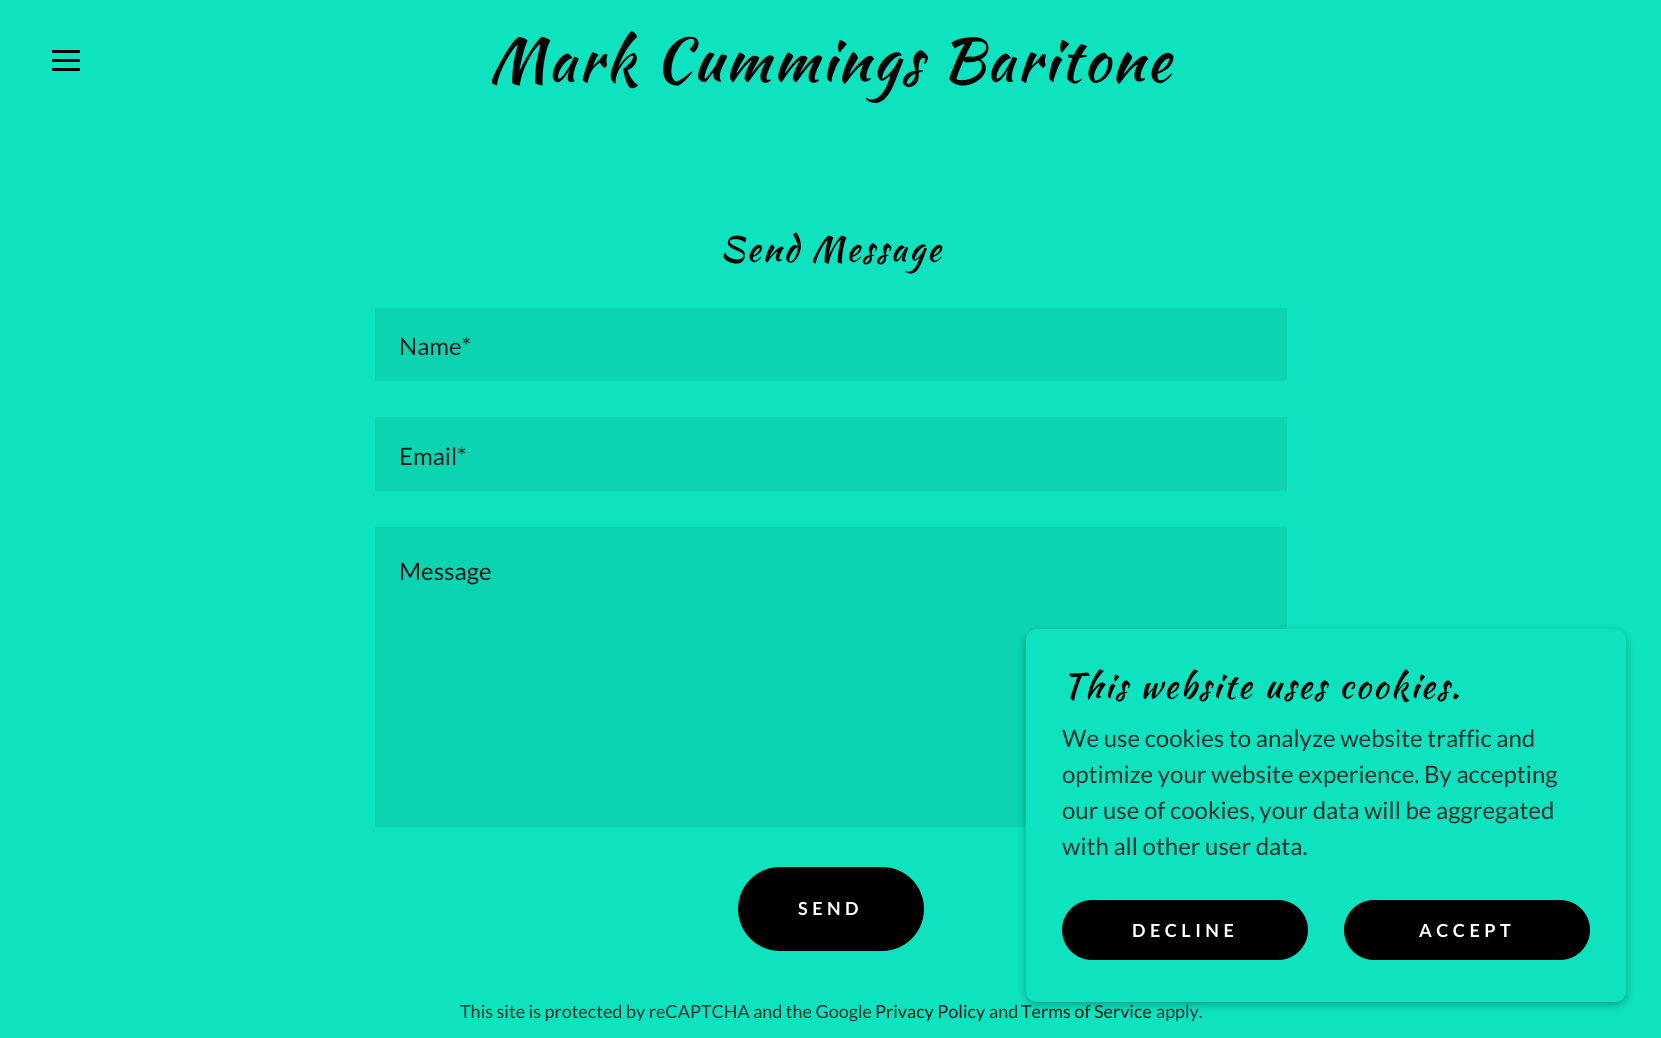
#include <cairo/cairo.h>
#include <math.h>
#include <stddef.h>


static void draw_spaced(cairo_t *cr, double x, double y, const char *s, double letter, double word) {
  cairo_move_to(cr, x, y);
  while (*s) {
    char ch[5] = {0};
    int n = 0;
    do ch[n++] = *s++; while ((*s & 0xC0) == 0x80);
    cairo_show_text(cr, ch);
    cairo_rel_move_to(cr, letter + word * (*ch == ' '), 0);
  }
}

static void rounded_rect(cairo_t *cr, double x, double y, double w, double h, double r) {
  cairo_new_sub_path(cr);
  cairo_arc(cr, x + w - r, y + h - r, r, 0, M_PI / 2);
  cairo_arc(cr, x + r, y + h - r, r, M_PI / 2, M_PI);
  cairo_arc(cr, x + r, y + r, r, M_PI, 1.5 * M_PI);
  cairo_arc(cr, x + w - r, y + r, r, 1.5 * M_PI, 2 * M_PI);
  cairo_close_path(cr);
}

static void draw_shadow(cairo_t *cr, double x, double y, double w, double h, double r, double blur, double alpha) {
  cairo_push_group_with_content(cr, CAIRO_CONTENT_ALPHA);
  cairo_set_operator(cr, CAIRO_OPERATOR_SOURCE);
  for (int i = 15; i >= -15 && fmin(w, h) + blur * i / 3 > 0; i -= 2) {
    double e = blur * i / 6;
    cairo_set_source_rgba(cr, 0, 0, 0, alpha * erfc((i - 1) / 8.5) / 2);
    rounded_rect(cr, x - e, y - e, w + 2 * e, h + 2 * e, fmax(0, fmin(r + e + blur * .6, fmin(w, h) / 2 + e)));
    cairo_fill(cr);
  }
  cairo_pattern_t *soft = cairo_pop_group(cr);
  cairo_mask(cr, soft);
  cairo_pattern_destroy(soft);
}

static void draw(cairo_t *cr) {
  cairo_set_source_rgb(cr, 14 / 255.0, 227 / 255.0, 191 / 255.0);
  cairo_paint(cr);
  cairo_set_source_rgb(cr, 0, 0, 0);
  cairo_rectangle(cr, 52, 50, 28, 3);
  cairo_fill(cr);
  cairo_rectangle(cr, 52, 59, 28, 3);
  cairo_fill(cr);
  cairo_rectangle(cr, 52, 68, 28, 3);
  cairo_fill(cr);
  cairo_set_source_rgb(cr, 12 / 255.0, 212 / 255.0, 178 / 255.0);
  cairo_rectangle(cr, 375, 308, 912, 73);
  cairo_fill(cr);
  cairo_rectangle(cr, 375, 417, 912, 74);
  cairo_fill(cr);
  cairo_rectangle(cr, 375, 527, 912, 300);
  cairo_fill(cr);
  cairo_set_source_rgb(cr, 0, 0, 0);
  rounded_rect(cr, 738, 867, 186, 84, 42);
  cairo_fill(cr);
  cairo_set_source_rgb(cr, 0, 0, 0);
  draw_shadow(cr, 1026, 632, 600, 373, 11, 4.5, 0.3);
  cairo_set_source_rgb(cr, 14 / 255.0, 227 / 255.0, 191 / 255.0);
  rounded_rect(cr, 1026, 629, 600, 373, 11);
  cairo_fill(cr);
  cairo_set_source_rgb(cr, 0, 0, 0);
  rounded_rect(cr, 1062, 900, 246, 60, 30);
  cairo_fill(cr);
  rounded_rect(cr, 1344, 900, 246, 60, 30);
  cairo_fill(cr);
  cairo_select_font_face(cr, "Kaushan Script", CAIRO_FONT_SLANT_NORMAL, CAIRO_FONT_WEIGHT_NORMAL);
  cairo_set_font_size(cr, 60);
  draw_spaced(cr, 489, 81, "Mark Cummings Baritone", 2.25, 0);
  cairo_set_font_size(cr, 34.5);
  draw_spaced(cr, 720, 261, "Send Message", 2.25, 0);
  cairo_select_font_face(cr, "Lato", CAIRO_FONT_SLANT_NORMAL, CAIRO_FONT_WEIGHT_NORMAL);
  cairo_set_font_size(cr, 24);
  cairo_set_source_rgb(cr, 27 / 255.0, 31 / 255.0, 30 / 255.0);
  cairo_move_to(cr, 399, 355);
  cairo_show_text(cr, "Name*");
  cairo_move_to(cr, 399, 465);
  cairo_show_text(cr, "Email*");
  cairo_set_source_rgb(cr, 22 / 255.0, 22 / 255.0, 22 / 255.0);
  cairo_move_to(cr, 399, 580);
  cairo_show_text(cr, "Message");
  cairo_select_font_face(cr, "Lato", CAIRO_FONT_SLANT_NORMAL, CAIRO_FONT_WEIGHT_BOLD);
  cairo_set_font_size(cr, 18);
  cairo_set_source_rgb(cr, 1, 1, 1);
  draw_spaced(cr, 798, 915, "SEND", 4.5, 0);
  cairo_select_font_face(cr, "Lato", CAIRO_FONT_SLANT_NORMAL, CAIRO_FONT_WEIGHT_NORMAL);
  cairo_set_source_rgb(cr, 40 / 255.0, 48 / 255.0, 46 / 255.0);
  cairo_move_to(cr, 460, 1018);
  cairo_show_text(cr, "This site is protected by reCAPTCHA and the Google");
  cairo_set_source_rgb(cr, 22 / 255.0, 22 / 255.0, 22 / 255.0);
  cairo_move_to(cr, 875, 1018);
  cairo_show_text(cr, "Privacy Policy");
  cairo_set_source_rgb(cr, 40 / 255.0, 48 / 255.0, 46 / 255.0);
  cairo_move_to(cr, 989, 1018);
  cairo_show_text(cr, "and");
  cairo_set_source_rgb(cr, 22 / 255.0, 22 / 255.0, 22 / 255.0);
  cairo_move_to(cr, 1021, 1018);
  cairo_show_text(cr, "Terms of Service");
  cairo_set_source_rgb(cr, 40 / 255.0, 48 / 255.0, 46 / 255.0);
  cairo_move_to(cr, 1156, 1018);
  cairo_show_text(cr, "apply.");
  cairo_select_font_face(cr, "Kaushan Script", CAIRO_FONT_SLANT_NORMAL, CAIRO_FONT_WEIGHT_NORMAL);
  cairo_set_font_size(cr, 34.5);
  cairo_set_source_rgb(cr, 0, 0, 0);
  draw_spaced(cr, 1062, 698, "This website uses cookies.", 2.25, 0);
  cairo_select_font_face(cr, "Lato", CAIRO_FONT_SLANT_NORMAL, CAIRO_FONT_WEIGHT_NORMAL);
  cairo_set_font_size(cr, 24);
  cairo_set_source_rgb(cr, 40 / 255.0, 48 / 255.0, 46 / 255.0);
  cairo_move_to(cr, 1062, 747);
  cairo_show_text(cr, "We use cookies to analyze website traffic and");
  cairo_move_to(cr, 1062, 783);
  cairo_show_text(cr, "optimize your website experience. By accepting");
  cairo_move_to(cr, 1062, 819);
  cairo_show_text(cr, "our use of cookies, your data will be aggregated");
  cairo_move_to(cr, 1062, 855);
  cairo_show_text(cr, "with all other user data.");
  cairo_select_font_face(cr, "Lato", CAIRO_FONT_SLANT_NORMAL, CAIRO_FONT_WEIGHT_BOLD);
  cairo_set_font_size(cr, 18);
  cairo_set_source_rgb(cr, 1, 1, 1);
  draw_spaced(cr, 1132, 937, "DECLINE", 4.5, 0);
  draw_spaced(cr, 1419, 937, "ACCEPT", 4.5, 0);
}

int main(void) {
  cairo_surface_t *surface = cairo_image_surface_create(CAIRO_FORMAT_RGB24, 1661, 1038);
  cairo_t *cr = cairo_create(surface);
  cairo_font_options_t *options = cairo_font_options_create();
  cairo_font_options_set_hint_metrics(options, CAIRO_HINT_METRICS_OFF);
  cairo_font_options_set_hint_style(options, CAIRO_HINT_STYLE_NONE);
  cairo_set_font_options(cr, options);
  cairo_set_miter_limit(cr, 4);
  draw(cr);
  cairo_surface_write_to_png(surface, "out.png");
  cairo_font_options_destroy(options);
  cairo_destroy(cr);
  cairo_surface_destroy(surface);
  return 0;
}
